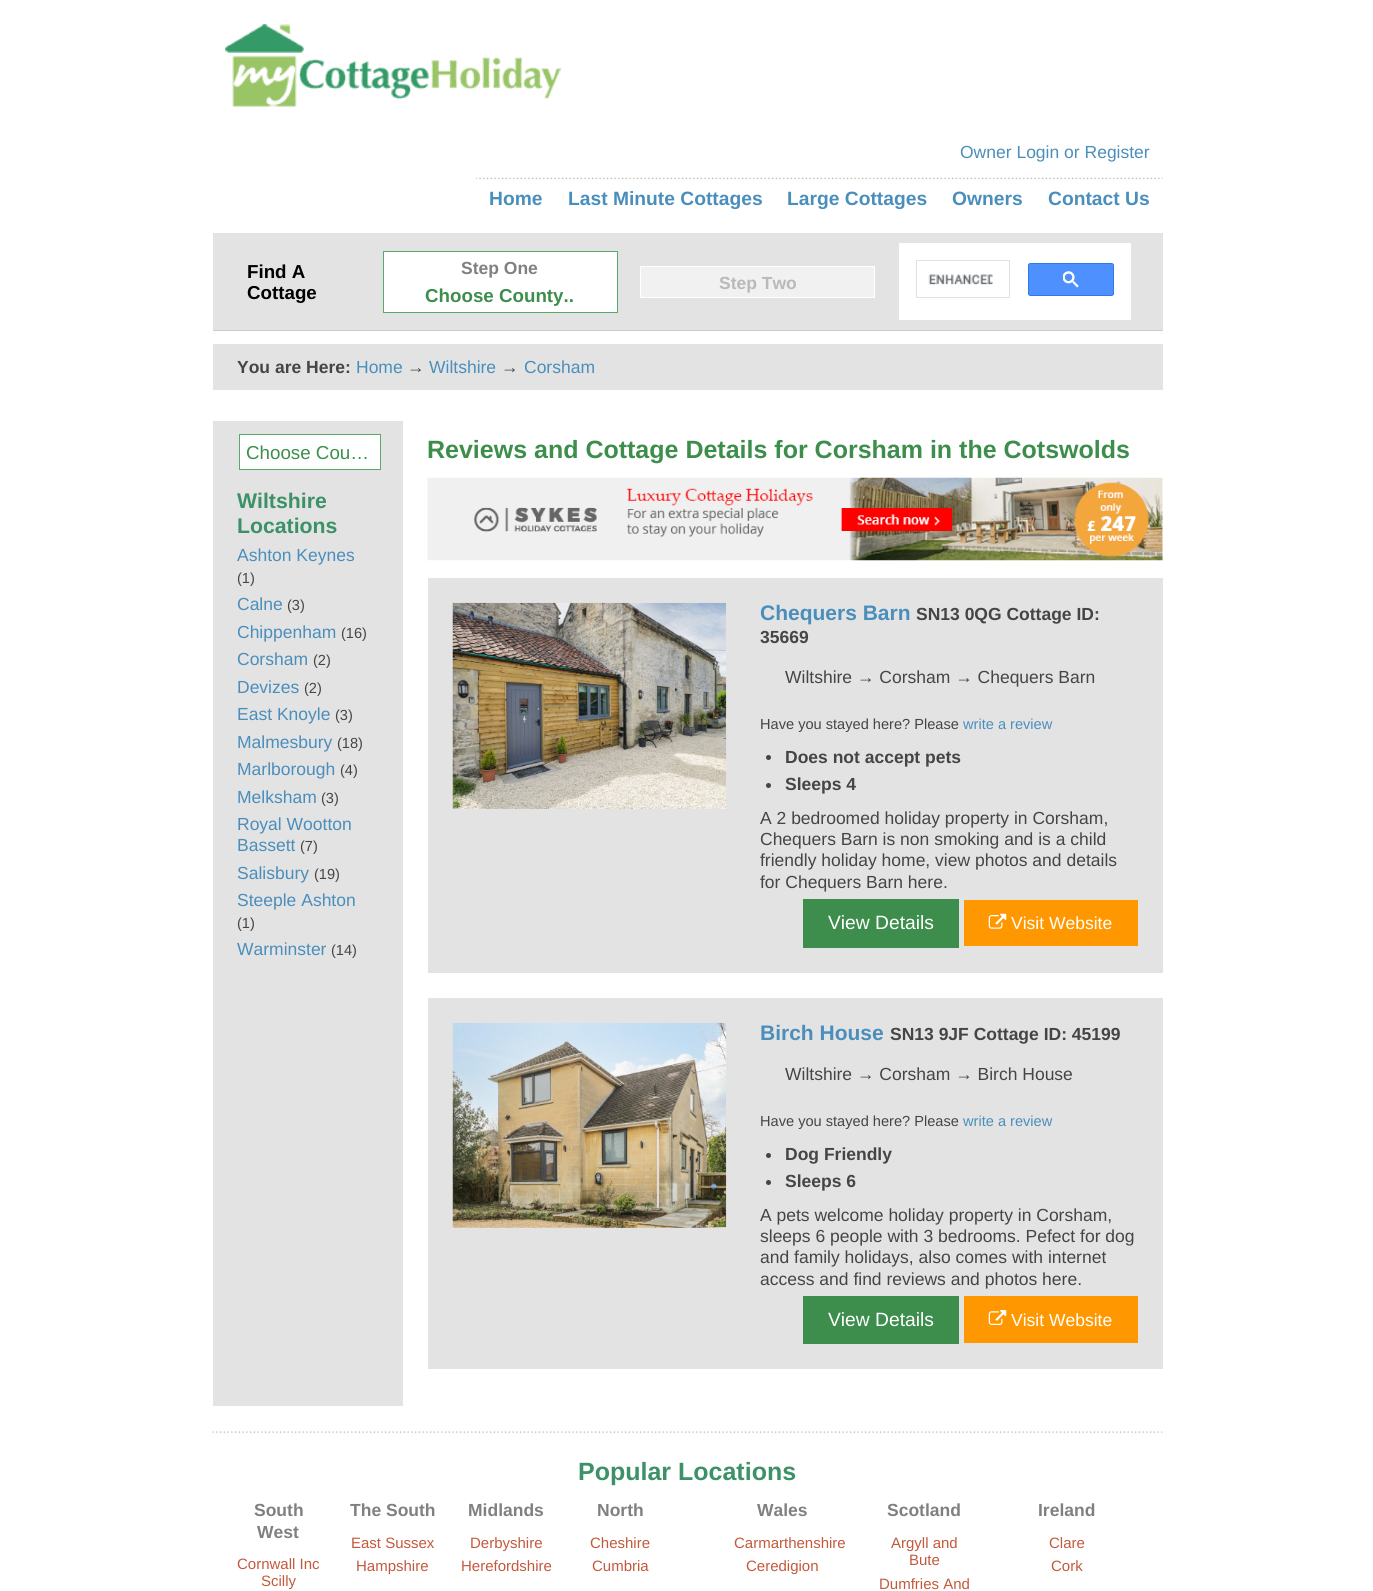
#include <cairo/cairo.h>
#include <math.h>
#include <stddef.h>


static void rounded_rect(cairo_t *cr, double x, double y, double w, double h, double r) {
  cairo_new_sub_path(cr);
  cairo_arc(cr, x + w - r, y + h - r, r, 0, M_PI / 2);
  cairo_arc(cr, x + r, y + h - r, r, M_PI / 2, M_PI);
  cairo_arc(cr, x + r, y + r, r, M_PI, 1.5 * M_PI);
  cairo_arc(cr, x + w - r, y + r, r, 1.5 * M_PI, 2 * M_PI);
  cairo_close_path(cr);
}

static void draw_image(cairo_t *cr, const char *path, double x, double y, double w, double h) {
  cairo_surface_t *image = cairo_image_surface_create_from_png(path);
  cairo_save(cr);
  cairo_set_source_surface(cr, image, x, y);
  cairo_rectangle(cr, x, y, w, h);
  cairo_fill(cr);
  cairo_restore(cr);
  cairo_surface_destroy(image);
}

static void draw(cairo_t *cr) {
  cairo_set_source_rgb(cr, 1, 1, 1);
  cairo_paint(cr);
  draw_image(cr, "images/1.png", 225, 24, 337, 83);
  draw_image(cr, "images/2.png", 476, 177, 687, 3);
  cairo_set_source_rgb(cr, 227 / 255.0, 227 / 255.0, 227 / 255.0);
  cairo_rectangle(cr, 213, 233, 950, 97);
  cairo_fill(cr);
  cairo_set_source_rgb(cr, 204 / 255.0, 204 / 255.0, 204 / 255.0);
  cairo_rectangle(cr, 213, 330, 950, 1);
  cairo_fill(cr);
  cairo_set_source_rgb(cr, 1, 1, 1);
  cairo_rectangle(cr, 383.5, 251.5, 234, 61);
  cairo_fill_preserve(cr);
  cairo_set_source_rgb(cr, 89 / 255.0, 170 / 255.0, 104 / 255.0);
  cairo_set_line_width(cr, 1);
  cairo_stroke(cr);
  cairo_set_source_rgb(cr, 241 / 255.0, 241 / 255.0, 241 / 255.0);
  cairo_rectangle(cr, 640.5, 266.5, 234, 31);
  cairo_fill_preserve(cr);
  cairo_set_source_rgb(cr, 1, 1, 1);
  cairo_stroke(cr);
  cairo_rectangle(cr, 899, 243, 232, 77);
  cairo_fill(cr);
  cairo_rectangle(cr, 916.5, 260.5, 93, 37);
  cairo_set_source_rgb(cr, 223 / 255.0, 225 / 255.0, 229 / 255.0);
  cairo_stroke(cr);
  draw_image(cr, "images/3.png", 928, 274, 65, 11);
  cairo_set_source_rgb(cr, 77 / 255.0, 144 / 255.0, 254 / 255.0);
  rounded_rect(cr, 1028.5, 263.5, 85, 32, 2);
  cairo_fill_preserve(cr);
  cairo_set_source_rgb(cr, 48 / 255.0, 121 / 255.0, 237 / 255.0);
  cairo_stroke(cr);
  draw_image(cr, "images/4.png", 1063, 271, 16, 17);
  cairo_set_source_rgb(cr, 227 / 255.0, 227 / 255.0, 227 / 255.0);
  cairo_rectangle(cr, 213, 344, 950, 46);
  cairo_fill(cr);
  cairo_rectangle(cr, 213, 421, 190, 985);
  cairo_fill(cr);
  cairo_set_source_rgb(cr, 1, 1, 1);
  cairo_rectangle(cr, 239.5, 434.5, 141, 35);
  cairo_fill_preserve(cr);
  cairo_set_source_rgb(cr, 89 / 255.0, 170 / 255.0, 104 / 255.0);
  cairo_stroke(cr);
  draw_image(cr, "images/5.png", 427, 477, 736, 84);
  cairo_set_source_rgb(cr, 227 / 255.0, 227 / 255.0, 227 / 255.0);
  cairo_rectangle(cr, 428, 578, 735, 395);
  cairo_fill(cr);
  draw_image(cr, "images/6.png", 452, 602, 275, 207);
  cairo_set_source_rgb(cr, 69 / 255.0, 69 / 255.0, 69 / 255.0);
  cairo_arc(cr, 768.5, 757.5, 2.5, 0, 2 * M_PI);
  cairo_fill(cr);
  cairo_arc(cr, 768.5, 785.5, 2.5, 0, 2 * M_PI);
  cairo_fill(cr);
  cairo_set_source_rgb(cr, 61 / 255.0, 142 / 255.0, 76 / 255.0);
  cairo_rectangle(cr, 803, 899, 156, 49);
  cairo_fill(cr);
  cairo_set_source_rgb(cr, 1, 152 / 255.0, 0);
  cairo_rectangle(cr, 964, 900, 174, 46);
  cairo_fill(cr);
  draw_image(cr, "images/7.png", 988, 913, 19, 16);
  cairo_set_source_rgb(cr, 227 / 255.0, 227 / 255.0, 227 / 255.0);
  cairo_rectangle(cr, 428, 998, 735, 371);
  cairo_fill(cr);
  draw_image(cr, "images/8.png", 452, 1022, 275, 206);
  cairo_set_source_rgb(cr, 69 / 255.0, 69 / 255.0, 69 / 255.0);
  cairo_arc(cr, 768.5, 1155.5, 2.5, 0, 2 * M_PI);
  cairo_fill(cr);
  cairo_arc(cr, 768.5, 1182.5, 2.5, 0, 2 * M_PI);
  cairo_fill(cr);
  cairo_set_source_rgb(cr, 61 / 255.0, 142 / 255.0, 76 / 255.0);
  cairo_rectangle(cr, 803, 1296, 156, 48);
  cairo_fill(cr);
  cairo_set_source_rgb(cr, 1, 152 / 255.0, 0);
  cairo_rectangle(cr, 964, 1296, 174, 47);
  cairo_fill(cr);
  draw_image(cr, "images/9.png", 988, 1310, 19, 15);
  draw_image(cr, "images/10.png", 212, 1431, 951, 2);
  cairo_select_font_face(cr, "Liberation Sans", CAIRO_FONT_SLANT_NORMAL, CAIRO_FONT_WEIGHT_NORMAL);
  cairo_set_font_size(cr, 17.5);
  cairo_set_source_rgb(cr, 74 / 255.0, 142 / 255.0, 188 / 255.0);
  cairo_move_to(cr, 960, 158);
  cairo_show_text(cr, "Owner Login or Register");
  cairo_select_font_face(cr, "Liberation Sans", CAIRO_FONT_SLANT_NORMAL, CAIRO_FONT_WEIGHT_BOLD);
  cairo_set_font_size(cr, 19.25);
  cairo_move_to(cr, 489, 205);
  cairo_show_text(cr, "Home");
  cairo_move_to(cr, 568, 205);
  cairo_show_text(cr, "Last Minute Cottages");
  cairo_move_to(cr, 787, 205);
  cairo_show_text(cr, "Large Cottages");
  cairo_move_to(cr, 952, 205);
  cairo_show_text(cr, "Owners");
  cairo_move_to(cr, 1048, 205);
  cairo_show_text(cr, "Contact Us");
  cairo_set_font_size(cr, 18.75);
  cairo_set_source_rgb(cr, 0, 0, 0);
  cairo_move_to(cr, 247, 278);
  cairo_show_text(cr, "Find A");
  cairo_move_to(cr, 247, 299);
  cairo_show_text(cr, "Cottage");
  cairo_set_font_size(cr, 17.5);
  cairo_set_source_rgb(cr, 128 / 255.0, 128 / 255.0, 128 / 255.0);
  cairo_move_to(cr, 461, 274);
  cairo_show_text(cr, "Step One");
  cairo_set_font_size(cr, 18.75);
  cairo_set_source_rgb(cr, 61 / 255.0, 142 / 255.0, 76 / 255.0);
  cairo_move_to(cr, 425, 302);
  cairo_show_text(cr, "Choose County..");
  cairo_set_font_size(cr, 17.5);
  cairo_set_source_rgb(cr, 185 / 255.0, 185 / 255.0, 185 / 255.0);
  cairo_move_to(cr, 719, 289);
  cairo_show_text(cr, "Step Two");
  cairo_set_source_rgb(cr, 69 / 255.0, 69 / 255.0, 69 / 255.0);
  cairo_move_to(cr, 237, 373);
  cairo_show_text(cr, "You are Here:");
  cairo_select_font_face(cr, "Liberation Sans", CAIRO_FONT_SLANT_NORMAL, CAIRO_FONT_WEIGHT_NORMAL);
  cairo_set_source_rgb(cr, 74 / 255.0, 142 / 255.0, 188 / 255.0);
  cairo_move_to(cr, 356, 373);
  cairo_show_text(cr, "Home");
  cairo_set_source_rgb(cr, 69 / 255.0, 69 / 255.0, 69 / 255.0);
  cairo_move_to(cr, 407, 373);
  cairo_show_text(cr, "→");
  cairo_set_source_rgb(cr, 74 / 255.0, 142 / 255.0, 188 / 255.0);
  cairo_move_to(cr, 429, 373);
  cairo_show_text(cr, "Wiltshire");
  cairo_set_source_rgb(cr, 69 / 255.0, 69 / 255.0, 69 / 255.0);
  cairo_move_to(cr, 501, 373);
  cairo_show_text(cr, "→");
  cairo_set_source_rgb(cr, 74 / 255.0, 142 / 255.0, 188 / 255.0);
  cairo_move_to(cr, 524, 373);
  cairo_show_text(cr, "Corsham");
  cairo_set_font_size(cr, 18.75);
  cairo_set_source_rgb(cr, 61 / 255.0, 142 / 255.0, 76 / 255.0);
  cairo_move_to(cr, 246, 459);
  cairo_show_text(cr, "Choose Cou…");
  cairo_select_font_face(cr, "Liberation Sans", CAIRO_FONT_SLANT_NORMAL, CAIRO_FONT_WEIGHT_BOLD);
  cairo_set_font_size(cr, 21.25);
  cairo_set_source_rgb(cr, 60 / 255.0, 145 / 255.0, 102 / 255.0);
  cairo_move_to(cr, 237, 508);
  cairo_show_text(cr, "Wiltshire");
  cairo_move_to(cr, 237, 533);
  cairo_show_text(cr, "Locations");
  cairo_select_font_face(cr, "Liberation Sans", CAIRO_FONT_SLANT_NORMAL, CAIRO_FONT_WEIGHT_NORMAL);
  cairo_set_font_size(cr, 17.5);
  cairo_set_source_rgb(cr, 74 / 255.0, 142 / 255.0, 188 / 255.0);
  cairo_move_to(cr, 237, 561);
  cairo_show_text(cr, "Ashton Keynes");
  cairo_set_font_size(cr, 14.6);
  cairo_set_source_rgb(cr, 69 / 255.0, 69 / 255.0, 69 / 255.0);
  cairo_move_to(cr, 237, 583);
  cairo_show_text(cr, "(1)");
  cairo_set_font_size(cr, 17.5);
  cairo_set_source_rgb(cr, 74 / 255.0, 142 / 255.0, 188 / 255.0);
  cairo_move_to(cr, 237, 610);
  cairo_show_text(cr, "Calne");
  cairo_set_font_size(cr, 14.6);
  cairo_set_source_rgb(cr, 69 / 255.0, 69 / 255.0, 69 / 255.0);
  cairo_move_to(cr, 287, 610);
  cairo_show_text(cr, "(3)");
  cairo_set_font_size(cr, 17.5);
  cairo_set_source_rgb(cr, 74 / 255.0, 142 / 255.0, 188 / 255.0);
  cairo_move_to(cr, 237, 638);
  cairo_show_text(cr, "Chippenham");
  cairo_set_font_size(cr, 14.6);
  cairo_set_source_rgb(cr, 69 / 255.0, 69 / 255.0, 69 / 255.0);
  cairo_move_to(cr, 341, 638);
  cairo_show_text(cr, "(16)");
  cairo_set_font_size(cr, 17.5);
  cairo_set_source_rgb(cr, 74 / 255.0, 142 / 255.0, 188 / 255.0);
  cairo_move_to(cr, 237, 665);
  cairo_show_text(cr, "Corsham");
  cairo_set_font_size(cr, 14.6);
  cairo_set_source_rgb(cr, 69 / 255.0, 69 / 255.0, 69 / 255.0);
  cairo_move_to(cr, 313, 665);
  cairo_show_text(cr, "(2)");
  cairo_set_font_size(cr, 17.5);
  cairo_set_source_rgb(cr, 74 / 255.0, 142 / 255.0, 188 / 255.0);
  cairo_move_to(cr, 237, 693);
  cairo_show_text(cr, "Devizes");
  cairo_set_font_size(cr, 14.6);
  cairo_set_source_rgb(cr, 69 / 255.0, 69 / 255.0, 69 / 255.0);
  cairo_move_to(cr, 304, 693);
  cairo_show_text(cr, "(2)");
  cairo_set_font_size(cr, 17.5);
  cairo_set_source_rgb(cr, 74 / 255.0, 142 / 255.0, 188 / 255.0);
  cairo_move_to(cr, 237, 720);
  cairo_show_text(cr, "East Knoyle");
  cairo_set_font_size(cr, 14.6);
  cairo_set_source_rgb(cr, 69 / 255.0, 69 / 255.0, 69 / 255.0);
  cairo_move_to(cr, 335, 720);
  cairo_show_text(cr, "(3)");
  cairo_set_font_size(cr, 17.5);
  cairo_set_source_rgb(cr, 74 / 255.0, 142 / 255.0, 188 / 255.0);
  cairo_move_to(cr, 237, 748);
  cairo_show_text(cr, "Malmesbury");
  cairo_set_font_size(cr, 14.6);
  cairo_set_source_rgb(cr, 69 / 255.0, 69 / 255.0, 69 / 255.0);
  cairo_move_to(cr, 337, 748);
  cairo_show_text(cr, "(18)");
  cairo_set_font_size(cr, 17.5);
  cairo_set_source_rgb(cr, 74 / 255.0, 142 / 255.0, 188 / 255.0);
  cairo_move_to(cr, 237, 775);
  cairo_show_text(cr, "Marlborough");
  cairo_set_font_size(cr, 14.6);
  cairo_set_source_rgb(cr, 69 / 255.0, 69 / 255.0, 69 / 255.0);
  cairo_move_to(cr, 340, 775);
  cairo_show_text(cr, "(4)");
  cairo_set_font_size(cr, 17.5);
  cairo_set_source_rgb(cr, 74 / 255.0, 142 / 255.0, 188 / 255.0);
  cairo_move_to(cr, 237, 803);
  cairo_show_text(cr, "Melksham");
  cairo_set_font_size(cr, 14.6);
  cairo_set_source_rgb(cr, 69 / 255.0, 69 / 255.0, 69 / 255.0);
  cairo_move_to(cr, 321, 803);
  cairo_show_text(cr, "(3)");
  cairo_set_font_size(cr, 17.5);
  cairo_set_source_rgb(cr, 74 / 255.0, 142 / 255.0, 188 / 255.0);
  cairo_move_to(cr, 237, 830);
  cairo_show_text(cr, "Royal Wootton");
  cairo_move_to(cr, 237, 851);
  cairo_show_text(cr, "Bassett");
  cairo_set_font_size(cr, 14.6);
  cairo_set_source_rgb(cr, 69 / 255.0, 69 / 255.0, 69 / 255.0);
  cairo_move_to(cr, 300, 851);
  cairo_show_text(cr, "(7)");
  cairo_set_font_size(cr, 17.5);
  cairo_set_source_rgb(cr, 74 / 255.0, 142 / 255.0, 188 / 255.0);
  cairo_move_to(cr, 237, 879);
  cairo_show_text(cr, "Salisbury");
  cairo_set_font_size(cr, 14.6);
  cairo_set_source_rgb(cr, 69 / 255.0, 69 / 255.0, 69 / 255.0);
  cairo_move_to(cr, 314, 879);
  cairo_show_text(cr, "(19)");
  cairo_set_font_size(cr, 17.5);
  cairo_set_source_rgb(cr, 74 / 255.0, 142 / 255.0, 188 / 255.0);
  cairo_move_to(cr, 237, 906);
  cairo_show_text(cr, "Steeple Ashton");
  cairo_set_font_size(cr, 14.6);
  cairo_set_source_rgb(cr, 69 / 255.0, 69 / 255.0, 69 / 255.0);
  cairo_move_to(cr, 237, 928);
  cairo_show_text(cr, "(1)");
  cairo_set_font_size(cr, 17.5);
  cairo_set_source_rgb(cr, 74 / 255.0, 142 / 255.0, 188 / 255.0);
  cairo_move_to(cr, 237, 955);
  cairo_show_text(cr, "Warminster");
  cairo_set_font_size(cr, 14.6);
  cairo_set_source_rgb(cr, 69 / 255.0, 69 / 255.0, 69 / 255.0);
  cairo_move_to(cr, 331, 955);
  cairo_show_text(cr, "(14)");
  cairo_select_font_face(cr, "Liberation Sans", CAIRO_FONT_SLANT_NORMAL, CAIRO_FONT_WEIGHT_BOLD);
  cairo_set_font_size(cr, 25);
  cairo_set_source_rgb(cr, 61 / 255.0, 142 / 255.0, 76 / 255.0);
  cairo_move_to(cr, 427, 458);
  cairo_show_text(cr, "Reviews and Cottage Details for Corsham in the Cotswolds");
  cairo_set_font_size(cr, 21);
  cairo_set_source_rgb(cr, 74 / 255.0, 142 / 255.0, 188 / 255.0);
  cairo_move_to(cr, 760, 620);
  cairo_show_text(cr, "Chequers Barn");
  cairo_set_font_size(cr, 17.5);
  cairo_set_source_rgb(cr, 69 / 255.0, 69 / 255.0, 69 / 255.0);
  cairo_move_to(cr, 916, 620);
  cairo_show_text(cr, "SN13 0QG Cottage ID:");
  cairo_move_to(cr, 760, 643);
  cairo_show_text(cr, "35669");
  cairo_select_font_face(cr, "Liberation Sans", CAIRO_FONT_SLANT_NORMAL, CAIRO_FONT_WEIGHT_NORMAL);
  cairo_move_to(cr, 785, 683);
  cairo_show_text(cr, "Wiltshire → Corsham → Chequers Barn");
  cairo_set_font_size(cr, 14.6);
  cairo_move_to(cr, 760, 729);
  cairo_show_text(cr, "Have you stayed here? Please");
  cairo_set_source_rgb(cr, 74 / 255.0, 142 / 255.0, 188 / 255.0);
  cairo_move_to(cr, 963, 729);
  cairo_show_text(cr, "write a review");
  cairo_select_font_face(cr, "Liberation Sans", CAIRO_FONT_SLANT_NORMAL, CAIRO_FONT_WEIGHT_BOLD);
  cairo_set_font_size(cr, 17.5);
  cairo_set_source_rgb(cr, 69 / 255.0, 69 / 255.0, 69 / 255.0);
  cairo_move_to(cr, 785, 763);
  cairo_show_text(cr, "Does not accept pets");
  cairo_move_to(cr, 785, 790);
  cairo_show_text(cr, "Sleeps 4");
  cairo_select_font_face(cr, "Liberation Sans", CAIRO_FONT_SLANT_NORMAL, CAIRO_FONT_WEIGHT_NORMAL);
  cairo_move_to(cr, 760, 824);
  cairo_show_text(cr, "A 2 bedroomed holiday property in Corsham,");
  cairo_move_to(cr, 760, 845);
  cairo_show_text(cr, "Chequers Barn is non smoking and is a child");
  cairo_move_to(cr, 760, 866);
  cairo_show_text(cr, "friendly holiday home, view photos and details");
  cairo_move_to(cr, 760, 888);
  cairo_show_text(cr, "for Chequers Barn here.");
  cairo_set_font_size(cr, 19.25);
  cairo_set_source_rgb(cr, 1, 1, 1);
  cairo_move_to(cr, 828, 929);
  cairo_show_text(cr, "View Details");
  cairo_set_font_size(cr, 17.5);
  cairo_move_to(cr, 1011, 929);
  cairo_show_text(cr, "Visit Website");
  cairo_select_font_face(cr, "Liberation Sans", CAIRO_FONT_SLANT_NORMAL, CAIRO_FONT_WEIGHT_BOLD);
  cairo_set_font_size(cr, 21);
  cairo_set_source_rgb(cr, 74 / 255.0, 142 / 255.0, 188 / 255.0);
  cairo_move_to(cr, 760, 1040);
  cairo_show_text(cr, "Birch House");
  cairo_set_font_size(cr, 17.5);
  cairo_set_source_rgb(cr, 69 / 255.0, 69 / 255.0, 69 / 255.0);
  cairo_move_to(cr, 890, 1040);
  cairo_show_text(cr, "SN13 9JF Cottage ID: 45199");
  cairo_select_font_face(cr, "Liberation Sans", CAIRO_FONT_SLANT_NORMAL, CAIRO_FONT_WEIGHT_NORMAL);
  cairo_move_to(cr, 785, 1080);
  cairo_show_text(cr, "Wiltshire → Corsham → Birch House");
  cairo_set_font_size(cr, 14.6);
  cairo_move_to(cr, 760, 1126);
  cairo_show_text(cr, "Have you stayed here? Please");
  cairo_set_source_rgb(cr, 74 / 255.0, 142 / 255.0, 188 / 255.0);
  cairo_move_to(cr, 963, 1126);
  cairo_show_text(cr, "write a review");
  cairo_select_font_face(cr, "Liberation Sans", CAIRO_FONT_SLANT_NORMAL, CAIRO_FONT_WEIGHT_BOLD);
  cairo_set_font_size(cr, 17.5);
  cairo_set_source_rgb(cr, 69 / 255.0, 69 / 255.0, 69 / 255.0);
  cairo_move_to(cr, 785, 1160);
  cairo_show_text(cr, "Dog Friendly");
  cairo_move_to(cr, 785, 1187);
  cairo_show_text(cr, "Sleeps 6");
  cairo_select_font_face(cr, "Liberation Sans", CAIRO_FONT_SLANT_NORMAL, CAIRO_FONT_WEIGHT_NORMAL);
  cairo_move_to(cr, 760, 1221);
  cairo_show_text(cr, "A pets welcome holiday property in Corsham,");
  cairo_move_to(cr, 760, 1242);
  cairo_show_text(cr, "sleeps 6 people with 3 bedrooms. Pefect for dog");
  cairo_move_to(cr, 760, 1263);
  cairo_show_text(cr, "and family holidays, also comes with internet");
  cairo_move_to(cr, 760, 1285);
  cairo_show_text(cr, "access and find reviews and photos here.");
  cairo_set_font_size(cr, 19.25);
  cairo_set_source_rgb(cr, 1, 1, 1);
  cairo_move_to(cr, 828, 1326);
  cairo_show_text(cr, "View Details");
  cairo_set_font_size(cr, 17.5);
  cairo_move_to(cr, 1011, 1326);
  cairo_show_text(cr, "Visit Website");
  cairo_select_font_face(cr, "Liberation Sans", CAIRO_FONT_SLANT_NORMAL, CAIRO_FONT_WEIGHT_BOLD);
  cairo_set_font_size(cr, 25);
  cairo_set_source_rgb(cr, 60 / 255.0, 145 / 255.0, 102 / 255.0);
  cairo_move_to(cr, 578, 1480);
  cairo_show_text(cr, "Popular Locations");
  cairo_set_font_size(cr, 17.5);
  cairo_set_source_rgb(cr, 128 / 255.0, 128 / 255.0, 128 / 255.0);
  cairo_move_to(cr, 254, 1516);
  cairo_show_text(cr, "South");
  cairo_move_to(cr, 257, 1538);
  cairo_show_text(cr, "West");
  cairo_select_font_face(cr, "Liberation Sans", CAIRO_FONT_SLANT_NORMAL, CAIRO_FONT_WEIGHT_NORMAL);
  cairo_set_font_size(cr, 15);
  cairo_set_source_rgb(cr, 195 / 255.0, 89 / 255.0, 60 / 255.0);
  cairo_move_to(cr, 237, 1569);
  cairo_show_text(cr, "Cornwall Inc");
  cairo_move_to(cr, 261, 1586);
  cairo_show_text(cr, "Scilly");
  cairo_select_font_face(cr, "Liberation Sans", CAIRO_FONT_SLANT_NORMAL, CAIRO_FONT_WEIGHT_BOLD);
  cairo_set_font_size(cr, 17.5);
  cairo_set_source_rgb(cr, 128 / 255.0, 128 / 255.0, 128 / 255.0);
  cairo_move_to(cr, 350, 1516);
  cairo_show_text(cr, "The South");
  cairo_select_font_face(cr, "Liberation Sans", CAIRO_FONT_SLANT_NORMAL, CAIRO_FONT_WEIGHT_NORMAL);
  cairo_set_font_size(cr, 15);
  cairo_set_source_rgb(cr, 195 / 255.0, 89 / 255.0, 60 / 255.0);
  cairo_move_to(cr, 351, 1548);
  cairo_show_text(cr, "East Sussex");
  cairo_move_to(cr, 356, 1571);
  cairo_show_text(cr, "Hampshire");
  cairo_select_font_face(cr, "Liberation Sans", CAIRO_FONT_SLANT_NORMAL, CAIRO_FONT_WEIGHT_BOLD);
  cairo_set_font_size(cr, 17.5);
  cairo_set_source_rgb(cr, 128 / 255.0, 128 / 255.0, 128 / 255.0);
  cairo_move_to(cr, 468, 1516);
  cairo_show_text(cr, "Midlands");
  cairo_select_font_face(cr, "Liberation Sans", CAIRO_FONT_SLANT_NORMAL, CAIRO_FONT_WEIGHT_NORMAL);
  cairo_set_font_size(cr, 15);
  cairo_set_source_rgb(cr, 195 / 255.0, 89 / 255.0, 60 / 255.0);
  cairo_move_to(cr, 470, 1548);
  cairo_show_text(cr, "Derbyshire");
  cairo_move_to(cr, 461, 1571);
  cairo_show_text(cr, "Herefordshire");
  cairo_select_font_face(cr, "Liberation Sans", CAIRO_FONT_SLANT_NORMAL, CAIRO_FONT_WEIGHT_BOLD);
  cairo_set_font_size(cr, 17.5);
  cairo_set_source_rgb(cr, 128 / 255.0, 128 / 255.0, 128 / 255.0);
  cairo_move_to(cr, 597, 1516);
  cairo_show_text(cr, "North");
  cairo_select_font_face(cr, "Liberation Sans", CAIRO_FONT_SLANT_NORMAL, CAIRO_FONT_WEIGHT_NORMAL);
  cairo_set_font_size(cr, 15);
  cairo_set_source_rgb(cr, 195 / 255.0, 89 / 255.0, 60 / 255.0);
  cairo_move_to(cr, 590, 1548);
  cairo_show_text(cr, "Cheshire");
  cairo_move_to(cr, 592, 1571);
  cairo_show_text(cr, "Cumbria");
  cairo_select_font_face(cr, "Liberation Sans", CAIRO_FONT_SLANT_NORMAL, CAIRO_FONT_WEIGHT_BOLD);
  cairo_set_font_size(cr, 17.5);
  cairo_set_source_rgb(cr, 128 / 255.0, 128 / 255.0, 128 / 255.0);
  cairo_move_to(cr, 757, 1516);
  cairo_show_text(cr, "Wales");
  cairo_select_font_face(cr, "Liberation Sans", CAIRO_FONT_SLANT_NORMAL, CAIRO_FONT_WEIGHT_NORMAL);
  cairo_set_font_size(cr, 15);
  cairo_set_source_rgb(cr, 195 / 255.0, 89 / 255.0, 60 / 255.0);
  cairo_move_to(cr, 734, 1548);
  cairo_show_text(cr, "Carmarthenshire");
  cairo_move_to(cr, 746, 1571);
  cairo_show_text(cr, "Ceredigion");
  cairo_select_font_face(cr, "Liberation Sans", CAIRO_FONT_SLANT_NORMAL, CAIRO_FONT_WEIGHT_BOLD);
  cairo_set_font_size(cr, 17.5);
  cairo_set_source_rgb(cr, 128 / 255.0, 128 / 255.0, 128 / 255.0);
  cairo_move_to(cr, 887, 1516);
  cairo_show_text(cr, "Scotland");
  cairo_select_font_face(cr, "Liberation Sans", CAIRO_FONT_SLANT_NORMAL, CAIRO_FONT_WEIGHT_NORMAL);
  cairo_set_font_size(cr, 15);
  cairo_set_source_rgb(cr, 195 / 255.0, 89 / 255.0, 60 / 255.0);
  cairo_move_to(cr, 891, 1548);
  cairo_show_text(cr, "Argyll and");
  cairo_move_to(cr, 909, 1565);
  cairo_show_text(cr, "Bute");
  cairo_move_to(cr, 879, 1589);
  cairo_show_text(cr, "Dumfries And");
  cairo_select_font_face(cr, "Liberation Sans", CAIRO_FONT_SLANT_NORMAL, CAIRO_FONT_WEIGHT_BOLD);
  cairo_set_font_size(cr, 17.5);
  cairo_set_source_rgb(cr, 128 / 255.0, 128 / 255.0, 128 / 255.0);
  cairo_move_to(cr, 1038, 1516);
  cairo_show_text(cr, "Ireland");
  cairo_select_font_face(cr, "Liberation Sans", CAIRO_FONT_SLANT_NORMAL, CAIRO_FONT_WEIGHT_NORMAL);
  cairo_set_font_size(cr, 15);
  cairo_set_source_rgb(cr, 195 / 255.0, 89 / 255.0, 60 / 255.0);
  cairo_move_to(cr, 1049, 1548);
  cairo_show_text(cr, "Clare");
  cairo_move_to(cr, 1051, 1571);
  cairo_show_text(cr, "Cork");
}

int main(void) {
  cairo_surface_t *surface = cairo_image_surface_create(CAIRO_FORMAT_RGB24, 1373, 1591);
  cairo_t *cr = cairo_create(surface);
  cairo_font_options_t *options = cairo_font_options_create();
  cairo_font_options_set_hint_metrics(options, CAIRO_HINT_METRICS_OFF);
  cairo_font_options_set_hint_style(options, CAIRO_HINT_STYLE_NONE);
  cairo_set_font_options(cr, options);
  cairo_set_miter_limit(cr, 4);
  draw(cr);
  cairo_surface_write_to_png(surface, "out.png");
  cairo_font_options_destroy(options);
  cairo_destroy(cr);
  cairo_surface_destroy(surface);
  return 0;
}
